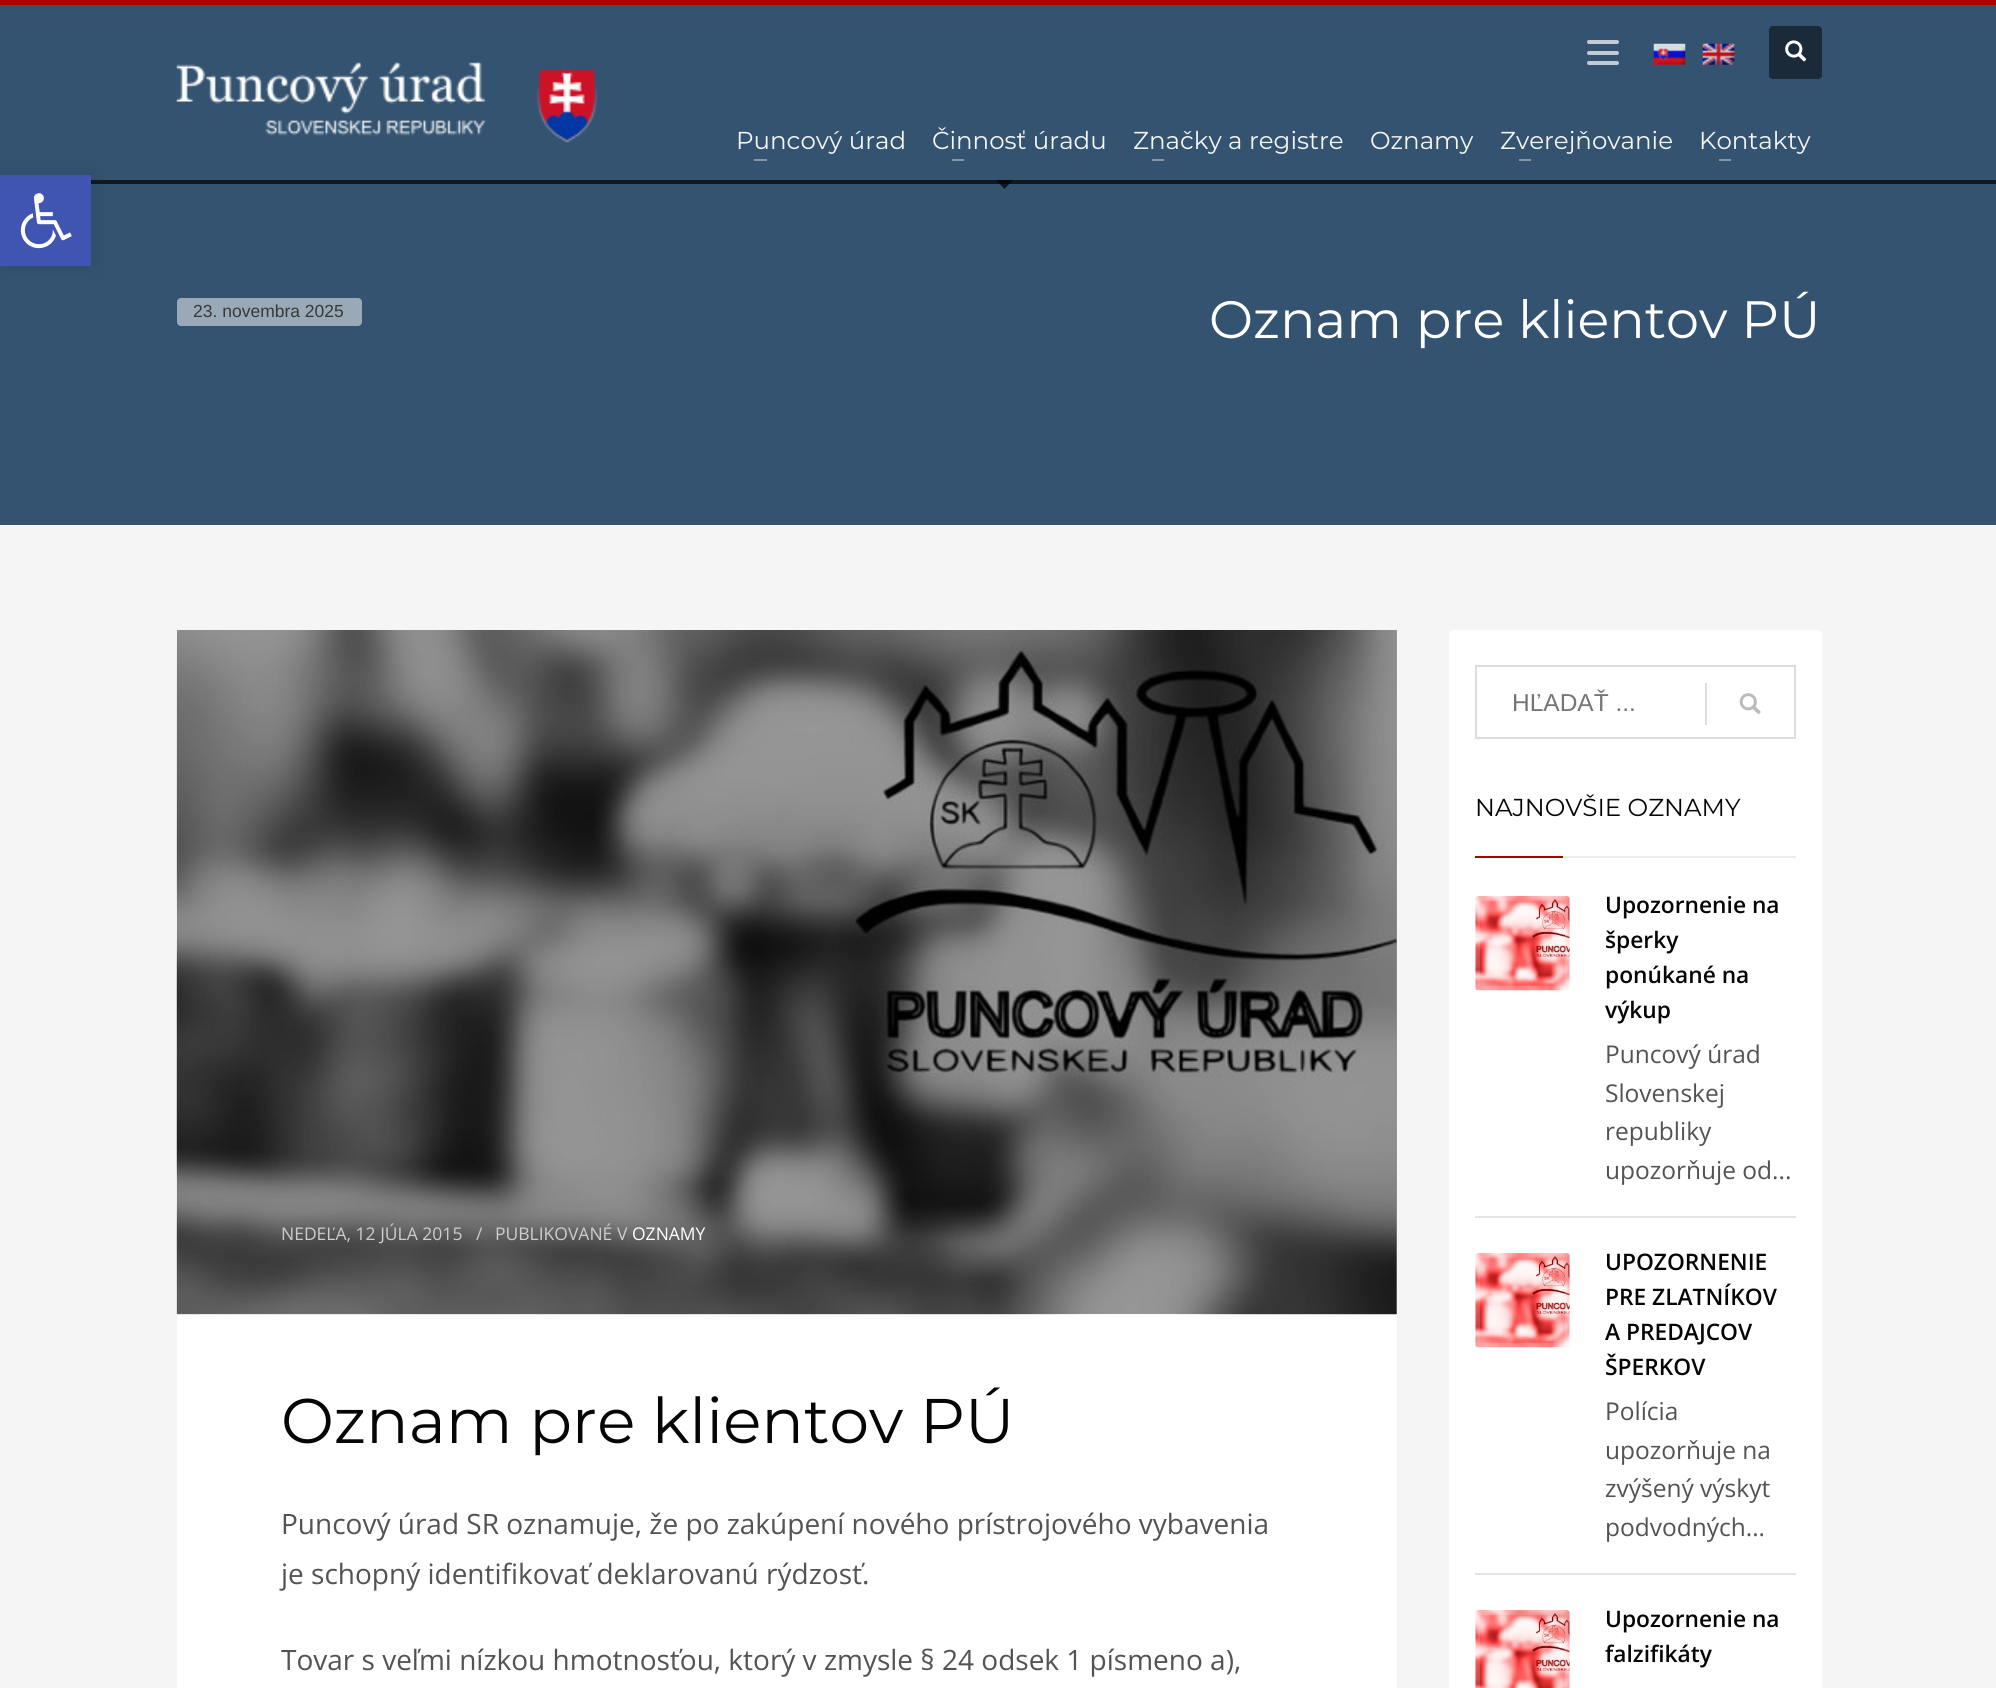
#include <cairo/cairo.h>
#include <math.h>
#include <stddef.h>


static void rounded_rect(cairo_t *cr, double x, double y, double w, double h, double r) {
  cairo_new_sub_path(cr);
  cairo_arc(cr, x + w - r, y + h - r, r, 0, M_PI / 2);
  cairo_arc(cr, x + r, y + h - r, r, M_PI / 2, M_PI);
  cairo_arc(cr, x + r, y + r, r, M_PI, 1.5 * M_PI);
  cairo_arc(cr, x + w - r, y + r, r, 1.5 * M_PI, 2 * M_PI);
  cairo_close_path(cr);
}

static void draw_shadow(cairo_t *cr, double x, double y, double w, double h, double r, double blur, double alpha) {
  cairo_push_group_with_content(cr, CAIRO_CONTENT_ALPHA);
  cairo_set_operator(cr, CAIRO_OPERATOR_SOURCE);
  for (int i = 15; i >= -15 && fmin(w, h) + blur * i / 3 > 0; i -= 2) {
    double e = blur * i / 6;
    cairo_set_source_rgba(cr, 0, 0, 0, alpha * erfc((i - 1) / 8.5) / 2);
    rounded_rect(cr, x - e, y - e, w + 2 * e, h + 2 * e, fmax(0, fmin(r + e + blur * .6, fmin(w, h) / 2 + e)));
    cairo_fill(cr);
  }
  cairo_pattern_t *soft = cairo_pop_group(cr);
  cairo_mask(cr, soft);
  cairo_pattern_destroy(soft);
}

static void draw_image(cairo_t *cr, const char *path, double x, double y, double w, double h) {
  cairo_surface_t *image = cairo_image_surface_create_from_png(path);
  cairo_save(cr);
  cairo_set_source_surface(cr, image, x, y);
  cairo_rectangle(cr, x, y, w, h);
  cairo_fill(cr);
  cairo_restore(cr);
  cairo_surface_destroy(image);
}

static void draw(cairo_t *cr) {
  cairo_set_source_rgb(cr, 245 / 255.0, 245 / 255.0, 245 / 255.0);
  cairo_paint(cr);
  cairo_set_source_rgb(cr, 52 / 255.0, 83 / 255.0, 112 / 255.0);
  cairo_rectangle(cr, 0, 5, 1996, 520);
  cairo_fill(cr);
  cairo_set_source_rgb(cr, 16 / 255.0, 25 / 255.0, 34 / 255.0);
  cairo_rectangle(cr, 91, 180, 1905, 4);
  cairo_fill(cr);
  cairo_set_source_rgb(cr, 0, 0, 0);
  draw_shadow(cr, 0, 175, 91, 91, 0, 9, 0.1);
  cairo_set_source_rgb(cr, 64 / 255.0, 84 / 255.0, 178 / 255.0);
  cairo_rectangle(cr, 0, 175, 91, 91);
  cairo_fill(cr);
  draw_image(cr, "images/1.png", 20, 193, 52, 56);
  cairo_set_source_rgb(cr, 175 / 255.0, 0, 0);
  cairo_rectangle(cr, 0, 0, 1996, 5);
  cairo_fill(cr);
  draw_image(cr, "images/2.png", 176, 61, 421, 82);
  cairo_set_source_rgb(cr, 194 / 255.0, 203 / 255.0, 212 / 255.0);
  rounded_rect(cr, 1587, 61, 32, 4, 2);
  cairo_fill(cr);
  rounded_rect(cr, 1587, 51, 32, 4, 2);
  cairo_fill(cr);
  rounded_rect(cr, 1587, 40, 32, 4, 2);
  cairo_fill(cr);
  draw_image(cr, "images/3.png", 1653, 43, 33, 22);
  draw_image(cr, "images/4.png", 1702, 43, 33, 22);
  cairo_set_source_rgb(cr, 26 / 255.0, 42 / 255.0, 56 / 255.0);
  rounded_rect(cr, 1769, 26, 53, 53, 4);
  cairo_fill(cr);
  draw_image(cr, "images/5.png", 1785, 40, 22, 22);
  cairo_set_source_rgb(cr, 133 / 255.0, 152 / 255.0, 169 / 255.0);
  cairo_rectangle(cr, 754, 159, 13, 2);
  cairo_fill(cr);
  cairo_rectangle(cr, 952, 159, 12, 2);
  cairo_fill(cr);
  cairo_rectangle(cr, 1152, 159, 12, 2);
  cairo_fill(cr);
  cairo_rectangle(cr, 1519, 159, 12, 2);
  cairo_fill(cr);
  cairo_rectangle(cr, 1719, 159, 12, 2);
  cairo_fill(cr);
  cairo_set_source_rgba(cr, 0, 0, 0, 0.7);
  cairo_new_path(cr);
  cairo_move_to(cr, 996, 180);
  cairo_line_to(cr, 1013, 180);
  cairo_line_to(cr, 1004.5, 189);
  cairo_close_path(cr);
  cairo_fill(cr);
  cairo_set_source_rgb(cr, 154 / 255.0, 169 / 255.0, 184 / 255.0);
  rounded_rect(cr, 177, 298, 185, 28, 4);
  cairo_fill(cr);
  cairo_set_source_rgb(cr, 1, 1, 1);
  cairo_rectangle(cr, 177, 1314, 1220, 374);
  cairo_fill(cr);
  cairo_set_source_rgb(cr, 153 / 255.0, 153 / 255.0, 153 / 255.0);
  cairo_rectangle(cr, 1396, 630, 1, 684);
  cairo_fill(cr);
  draw_image(cr, "images/6.png", 176, 630, 1221, 685);
  cairo_set_source_rgb(cr, 1, 1, 1);
  rounded_rect(cr, 1449, 630, 373, 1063, 5);
  cairo_fill(cr);
  cairo_rectangle(cr, 1476, 666, 319, 72);
  cairo_set_source_rgb(cr, 221 / 255.0, 221 / 255.0, 221 / 255.0);
  cairo_stroke(cr);
  cairo_rectangle(cr, 1705, 683, 2, 42);
  cairo_fill(cr);
  draw_image(cr, "images/7.png", 1739, 693, 22, 21);
  cairo_set_source_rgb(cr, 175 / 255.0, 0, 0);
  cairo_rectangle(cr, 1475, 856, 88, 2);
  cairo_fill(cr);
  cairo_set_source_rgb(cr, 236 / 255.0, 236 / 255.0, 236 / 255.0);
  cairo_rectangle(cr, 1563, 856, 233, 2);
  cairo_fill(cr);
  cairo_set_source_rgb(cr, 227 / 255.0, 227 / 255.0, 227 / 255.0);
  cairo_rectangle(cr, 1475, 1216, 321, 2);
  cairo_fill(cr);
  draw_image(cr, "images/8.png", 1475, 896, 95, 95);
  rounded_rect(cr, 1477.5, 898.5, 90, 90, 2.5);
  cairo_set_source_rgba(cr, 1, 1, 1, 0.15);
  cairo_set_line_width(cr, 5);
  cairo_stroke(cr);
  cairo_set_source_rgb(cr, 227 / 255.0, 227 / 255.0, 227 / 255.0);
  cairo_rectangle(cr, 1475, 1573, 321, 2);
  cairo_fill(cr);
  draw_image(cr, "images/8.png", 1475, 1253, 95, 95);
  rounded_rect(cr, 1477.5, 1255.5, 90, 90, 2.5);
  cairo_set_source_rgba(cr, 1, 1, 1, 0.15);
  cairo_stroke(cr);
  draw_image(cr, "images/9.png", 1475, 1610, 95, 78);
  rounded_rect(cr, 1477.5, 1612.5, 90, 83, 2.5);
  cairo_stroke(cr);
  cairo_select_font_face(cr, "Montserrat", CAIRO_FONT_SLANT_NORMAL, CAIRO_FONT_WEIGHT_NORMAL);
  cairo_set_font_size(cr, 24.5);
  cairo_set_source_rgb(cr, 245 / 255.0, 245 / 255.0, 245 / 255.0);
  cairo_move_to(cr, 736, 149);
  cairo_show_text(cr, "Puncový úrad");
  cairo_move_to(cr, 932, 149);
  cairo_show_text(cr, "Činnosť úradu");
  cairo_move_to(cr, 1133, 149);
  cairo_show_text(cr, "Značky a registre");
  cairo_move_to(cr, 1370, 149);
  cairo_show_text(cr, "Oznamy");
  cairo_move_to(cr, 1500, 149);
  cairo_show_text(cr, "Zverejňovanie");
  cairo_move_to(cr, 1699, 149);
  cairo_show_text(cr, "Kontakty");
  cairo_select_font_face(cr, "Liberation Sans", CAIRO_FONT_SLANT_NORMAL, CAIRO_FONT_WEIGHT_NORMAL);
  cairo_set_font_size(cr, 17.5);
  cairo_set_source_rgb(cr, 56 / 255.0, 56 / 255.0, 56 / 255.0);
  cairo_move_to(cr, 193, 317);
  cairo_show_text(cr, "23. novembra 2025");
  cairo_select_font_face(cr, "Montserrat", CAIRO_FONT_SLANT_NORMAL, CAIRO_FONT_WEIGHT_NORMAL);
  cairo_set_font_size(cr, 52.5);
  cairo_set_source_rgb(cr, 1, 1, 1);
  cairo_move_to(cr, 1209, 338);
  cairo_show_text(cr, "Oznam pre klientov PÚ");
  cairo_select_font_face(cr, "Open Sans", CAIRO_FONT_SLANT_NORMAL, CAIRO_FONT_WEIGHT_NORMAL);
  cairo_set_font_size(cr, 17.5);
  cairo_set_source_rgb(cr, 205 / 255.0, 205 / 255.0, 205 / 255.0);
  cairo_move_to(cr, 281, 1240);
  cairo_show_text(cr, "NEDEĽA, 12 JÚLA 2015");
  cairo_move_to(cr, 476, 1240);
  cairo_show_text(cr, "/");
  cairo_move_to(cr, 495, 1240);
  cairo_show_text(cr, "PUBLIKOVANÉ V");
  cairo_set_source_rgb(cr, 1, 1, 1);
  cairo_move_to(cr, 632, 1240);
  cairo_show_text(cr, "OZNAMY");
  cairo_select_font_face(cr, "Montserrat", CAIRO_FONT_SLANT_NORMAL, CAIRO_FONT_WEIGHT_NORMAL);
  cairo_set_font_size(cr, 63);
  cairo_set_source_rgb(cr, 5 / 255.0, 5 / 255.0, 5 / 255.0);
  cairo_move_to(cr, 281, 1443);
  cairo_show_text(cr, "Oznam pre klientov PÚ");
  cairo_select_font_face(cr, "Open Sans", CAIRO_FONT_SLANT_NORMAL, CAIRO_FONT_WEIGHT_NORMAL);
  cairo_set_font_size(cr, 28);
  cairo_set_source_rgb(cr, 83 / 255.0, 83 / 255.0, 83 / 255.0);
  cairo_move_to(cr, 281, 1534);
  cairo_show_text(cr, "Puncový úrad SR oznamuje, že po zakúpení nového prístrojového vybavenia");
  cairo_move_to(cr, 281, 1584);
  cairo_show_text(cr, "je schopný identifikovať deklarovanú rýdzosť.");
  cairo_move_to(cr, 281, 1670);
  cairo_show_text(cr, "Tovar s veľmi nízkou hmotnosťou, ktorý v zmysle § 24 odsek 1 písmeno a),");
  cairo_select_font_face(cr, "Liberation Sans", CAIRO_FONT_SLANT_NORMAL, CAIRO_FONT_WEIGHT_NORMAL);
  cairo_set_font_size(cr, 24.5);
  cairo_set_source_rgb(cr, 117 / 255.0, 117 / 255.0, 117 / 255.0);
  cairo_move_to(cr, 1512, 711);
  cairo_show_text(cr, "HĽADAŤ ...");
  cairo_select_font_face(cr, "Montserrat", CAIRO_FONT_SLANT_NORMAL, CAIRO_FONT_WEIGHT_NORMAL);
  cairo_set_source_rgb(cr, 5 / 255.0, 5 / 255.0, 5 / 255.0);
  cairo_move_to(cr, 1475, 816);
  cairo_show_text(cr, "NAJNOVŠIE OZNAMY");
  cairo_select_font_face(cr, "Open Sans SemiBold", CAIRO_FONT_SLANT_NORMAL, CAIRO_FONT_WEIGHT_NORMAL);
  cairo_set_font_size(cr, 22.75);
  cairo_move_to(cr, 1605, 913);
  cairo_show_text(cr, "Upozornenie na");
  cairo_move_to(cr, 1605, 948);
  cairo_show_text(cr, "šperky");
  cairo_move_to(cr, 1605, 983);
  cairo_show_text(cr, "ponúkané na");
  cairo_move_to(cr, 1605, 1018);
  cairo_show_text(cr, "výkup");
  cairo_select_font_face(cr, "Open Sans", CAIRO_FONT_SLANT_NORMAL, CAIRO_FONT_WEIGHT_NORMAL);
  cairo_set_font_size(cr, 24.5);
  cairo_set_source_rgb(cr, 83 / 255.0, 83 / 255.0, 83 / 255.0);
  cairo_move_to(cr, 1605, 1063);
  cairo_show_text(cr, "Puncový úrad");
  cairo_move_to(cr, 1605, 1102);
  cairo_show_text(cr, "Slovenskej");
  cairo_move_to(cr, 1605, 1140);
  cairo_show_text(cr, "republiky");
  cairo_move_to(cr, 1605, 1179);
  cairo_show_text(cr, "upozorňuje od...");
  cairo_select_font_face(cr, "Open Sans SemiBold", CAIRO_FONT_SLANT_NORMAL, CAIRO_FONT_WEIGHT_NORMAL);
  cairo_set_font_size(cr, 22.75);
  cairo_set_source_rgb(cr, 5 / 255.0, 5 / 255.0, 5 / 255.0);
  cairo_move_to(cr, 1605, 1270);
  cairo_show_text(cr, "UPOZORNENIE");
  cairo_move_to(cr, 1605, 1305);
  cairo_show_text(cr, "PRE ZLATNÍKOV");
  cairo_move_to(cr, 1605, 1340);
  cairo_show_text(cr, "A PREDAJCOV");
  cairo_move_to(cr, 1605, 1375);
  cairo_show_text(cr, "ŠPERKOV");
  cairo_select_font_face(cr, "Open Sans", CAIRO_FONT_SLANT_NORMAL, CAIRO_FONT_WEIGHT_NORMAL);
  cairo_set_font_size(cr, 24.5);
  cairo_set_source_rgb(cr, 83 / 255.0, 83 / 255.0, 83 / 255.0);
  cairo_move_to(cr, 1605, 1420);
  cairo_show_text(cr, "Polícia");
  cairo_move_to(cr, 1605, 1459);
  cairo_show_text(cr, "upozorňuje na");
  cairo_move_to(cr, 1605, 1497);
  cairo_show_text(cr, "zvýšený výskyt");
  cairo_move_to(cr, 1605, 1536);
  cairo_show_text(cr, "podvodných...");
  cairo_select_font_face(cr, "Open Sans SemiBold", CAIRO_FONT_SLANT_NORMAL, CAIRO_FONT_WEIGHT_NORMAL);
  cairo_set_font_size(cr, 22.75);
  cairo_set_source_rgb(cr, 5 / 255.0, 5 / 255.0, 5 / 255.0);
  cairo_move_to(cr, 1605, 1627);
  cairo_show_text(cr, "Upozornenie na");
  cairo_move_to(cr, 1605, 1662);
  cairo_show_text(cr, "falzifikáty");
}

int main(void) {
  cairo_surface_t *surface = cairo_image_surface_create(CAIRO_FORMAT_RGB24, 1996, 1688);
  cairo_t *cr = cairo_create(surface);
  cairo_font_options_t *options = cairo_font_options_create();
  cairo_font_options_set_hint_metrics(options, CAIRO_HINT_METRICS_OFF);
  cairo_font_options_set_hint_style(options, CAIRO_HINT_STYLE_NONE);
  cairo_set_font_options(cr, options);
  cairo_set_miter_limit(cr, 4);
  draw(cr);
  cairo_surface_write_to_png(surface, "out.png");
  cairo_font_options_destroy(options);
  cairo_destroy(cr);
  cairo_surface_destroy(surface);
  return 0;
}
